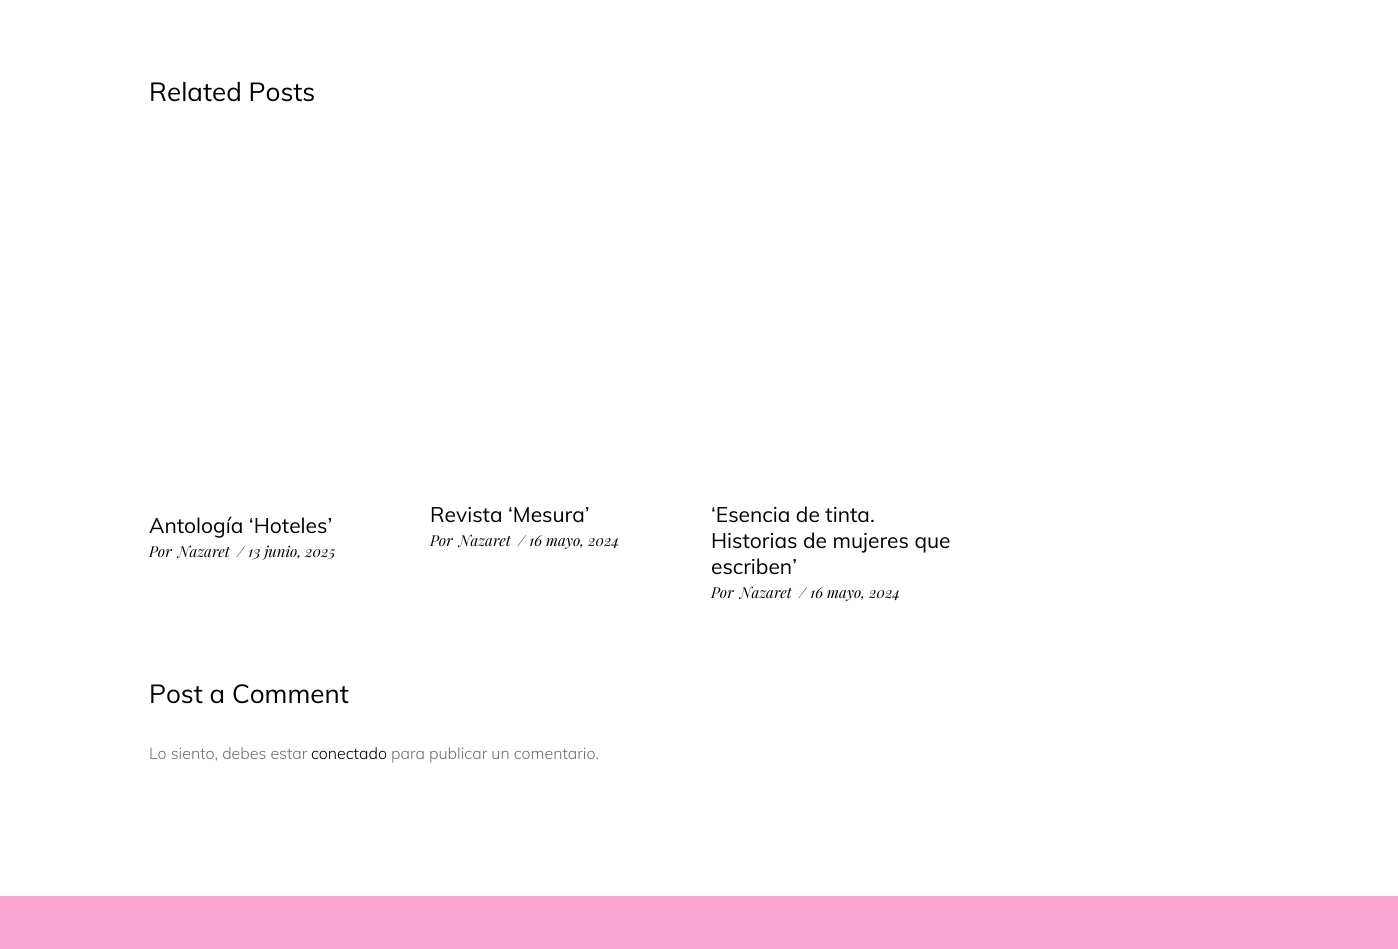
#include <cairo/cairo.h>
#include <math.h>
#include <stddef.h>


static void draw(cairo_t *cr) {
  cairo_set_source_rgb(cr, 1, 1, 1);
  cairo_paint(cr);
  cairo_set_source_rgb(cr, 251 / 255.0, 165 / 255.0, 208 / 255.0);
  cairo_rectangle(cr, 0, 896, 1398, 53);
  cairo_fill(cr);
  cairo_select_font_face(cr, "Muli", CAIRO_FONT_SLANT_NORMAL, CAIRO_FONT_WEIGHT_NORMAL);
  cairo_set_font_size(cr, 26);
  cairo_set_source_rgb(cr, 0, 0, 0);
  cairo_move_to(cr, 149, 101);
  cairo_show_text(cr, "Related Posts");
  cairo_set_font_size(cr, 21);
  cairo_move_to(cr, 149, 533);
  cairo_show_text(cr, "Antología ‘Hoteles’");
  cairo_select_font_face(cr, "Playfair Display", CAIRO_FONT_SLANT_ITALIC, CAIRO_FONT_WEIGHT_NORMAL);
  cairo_set_font_size(cr, 15);
  cairo_move_to(cr, 149, 557);
  cairo_show_text(cr, "Por");
  cairo_move_to(cr, 178, 557);
  cairo_show_text(cr, "Nazaret");
  cairo_move_to(cr, 237, 557);
  cairo_show_text(cr, "/");
  cairo_move_to(cr, 248, 557);
  cairo_show_text(cr, "13 junio, 2025");
  cairo_select_font_face(cr, "Muli", CAIRO_FONT_SLANT_NORMAL, CAIRO_FONT_WEIGHT_NORMAL);
  cairo_set_font_size(cr, 21);
  cairo_move_to(cr, 430, 522);
  cairo_show_text(cr, "Revista ‘Mesura’");
  cairo_select_font_face(cr, "Playfair Display", CAIRO_FONT_SLANT_ITALIC, CAIRO_FONT_WEIGHT_NORMAL);
  cairo_set_font_size(cr, 15);
  cairo_move_to(cr, 430, 546);
  cairo_show_text(cr, "Por");
  cairo_move_to(cr, 459, 546);
  cairo_show_text(cr, "Nazaret");
  cairo_move_to(cr, 518, 546);
  cairo_show_text(cr, "/");
  cairo_move_to(cr, 529, 546);
  cairo_show_text(cr, "16 mayo, 2024");
  cairo_select_font_face(cr, "Muli", CAIRO_FONT_SLANT_NORMAL, CAIRO_FONT_WEIGHT_NORMAL);
  cairo_set_font_size(cr, 21);
  cairo_move_to(cr, 711, 522);
  cairo_show_text(cr, "‘Esencia de tinta.");
  cairo_move_to(cr, 711, 548);
  cairo_show_text(cr, "Historias de mujeres que");
  cairo_move_to(cr, 711, 574);
  cairo_show_text(cr, "escriben’");
  cairo_select_font_face(cr, "Playfair Display", CAIRO_FONT_SLANT_ITALIC, CAIRO_FONT_WEIGHT_NORMAL);
  cairo_set_font_size(cr, 15);
  cairo_move_to(cr, 711, 598);
  cairo_show_text(cr, "Por");
  cairo_move_to(cr, 740, 598);
  cairo_show_text(cr, "Nazaret");
  cairo_move_to(cr, 799, 598);
  cairo_show_text(cr, "/");
  cairo_move_to(cr, 810, 598);
  cairo_show_text(cr, "16 mayo, 2024");
  cairo_select_font_face(cr, "Muli", CAIRO_FONT_SLANT_NORMAL, CAIRO_FONT_WEIGHT_NORMAL);
  cairo_set_font_size(cr, 26);
  cairo_move_to(cr, 149, 703);
  cairo_show_text(cr, "Post a Comment");
  cairo_select_font_face(cr, "Muli Light", CAIRO_FONT_SLANT_NORMAL, CAIRO_FONT_WEIGHT_NORMAL);
  cairo_set_font_size(cr, 16);
  cairo_set_source_rgb(cr, 109 / 255.0, 109 / 255.0, 109 / 255.0);
  cairo_move_to(cr, 149, 759);
  cairo_show_text(cr, "Lo siento, debes estar");
  cairo_set_source_rgb(cr, 0, 0, 0);
  cairo_move_to(cr, 311, 759);
  cairo_show_text(cr, "conectado");
  cairo_set_source_rgb(cr, 109 / 255.0, 109 / 255.0, 109 / 255.0);
  cairo_move_to(cr, 391, 759);
  cairo_show_text(cr, "para publicar un comentario.");
}

int main(void) {
  cairo_surface_t *surface = cairo_image_surface_create(CAIRO_FORMAT_RGB24, 1398, 949);
  cairo_t *cr = cairo_create(surface);
  cairo_font_options_t *options = cairo_font_options_create();
  cairo_font_options_set_hint_metrics(options, CAIRO_HINT_METRICS_OFF);
  cairo_font_options_set_hint_style(options, CAIRO_HINT_STYLE_NONE);
  cairo_set_font_options(cr, options);
  cairo_set_miter_limit(cr, 4);
  draw(cr);
  cairo_surface_write_to_png(surface, "out.png");
  cairo_font_options_destroy(options);
  cairo_destroy(cr);
  cairo_surface_destroy(surface);
  return 0;
}
